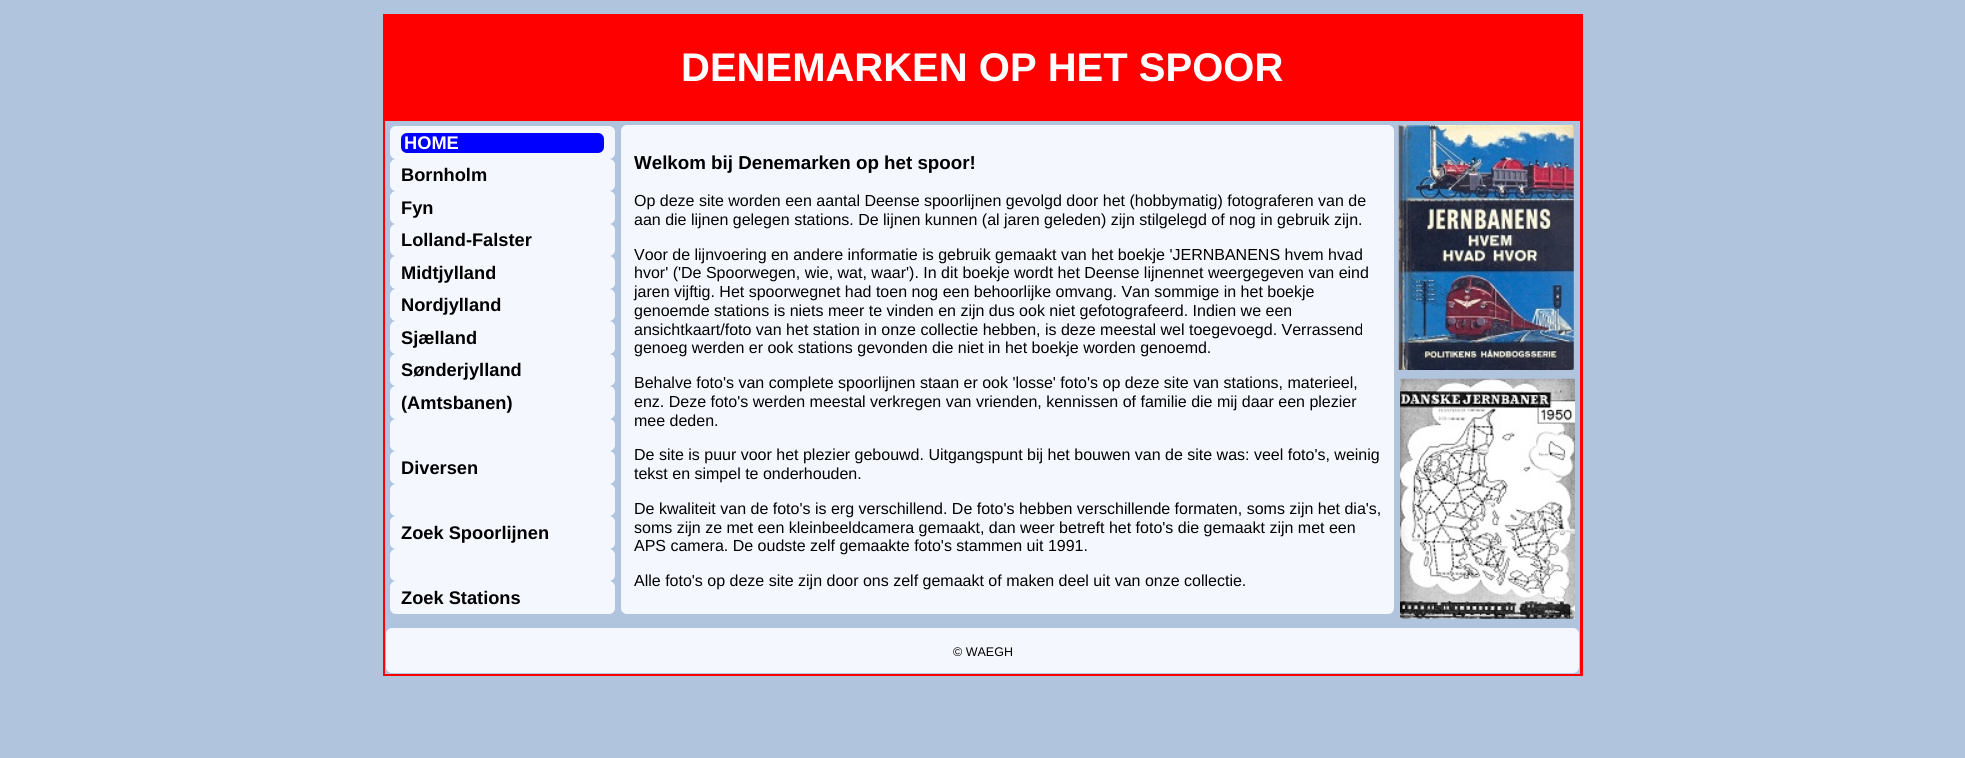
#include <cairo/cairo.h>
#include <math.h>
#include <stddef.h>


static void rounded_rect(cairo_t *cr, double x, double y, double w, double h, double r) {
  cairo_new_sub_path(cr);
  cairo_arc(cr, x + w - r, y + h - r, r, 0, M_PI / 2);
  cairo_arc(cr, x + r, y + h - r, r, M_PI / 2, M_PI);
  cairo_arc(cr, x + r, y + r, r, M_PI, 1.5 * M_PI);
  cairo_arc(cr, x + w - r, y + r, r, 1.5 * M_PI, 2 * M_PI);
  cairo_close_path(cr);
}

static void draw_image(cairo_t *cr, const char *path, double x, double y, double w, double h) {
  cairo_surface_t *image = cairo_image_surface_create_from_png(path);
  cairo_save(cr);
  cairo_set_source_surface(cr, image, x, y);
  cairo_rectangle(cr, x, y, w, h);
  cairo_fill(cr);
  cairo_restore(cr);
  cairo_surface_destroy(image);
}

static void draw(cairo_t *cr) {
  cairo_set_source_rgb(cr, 176 / 255.0, 196 / 255.0, 222 / 255.0);
  cairo_paint(cr);
  cairo_set_source_rgb(cr, 1, 0, 0);
  cairo_rectangle(cr, 383, 14, 1200, 662);
  cairo_fill(cr);
  cairo_set_source_rgb(cr, 176 / 255.0, 196 / 255.0, 222 / 255.0);
  cairo_rectangle(cr, 385, 121, 1195, 553);
  cairo_fill(cr);
  cairo_set_source_rgb(cr, 245 / 255.0, 247 / 255.0, 1);
  rounded_rect(cr, 390, 126, 225, 33, 6);
  cairo_fill(cr);
  cairo_set_source_rgb(cr, 0, 0, 1);
  rounded_rect(cr, 401, 133, 203, 20, 6);
  cairo_fill(cr);
  cairo_set_source_rgb(cr, 245 / 255.0, 247 / 255.0, 1);
  rounded_rect(cr, 390, 159, 225, 32, 6);
  cairo_fill(cr);
  rounded_rect(cr, 390, 191, 225, 33, 6);
  cairo_fill(cr);
  rounded_rect(cr, 390, 224, 225, 32, 6);
  cairo_fill(cr);
  rounded_rect(cr, 390, 256, 225, 33, 6);
  cairo_fill(cr);
  rounded_rect(cr, 390, 289, 225, 32, 6);
  cairo_fill(cr);
  rounded_rect(cr, 390, 321, 225, 33, 6);
  cairo_fill(cr);
  rounded_rect(cr, 390, 354, 225, 32, 6);
  cairo_fill(cr);
  rounded_rect(cr, 390, 386, 225, 33, 6);
  cairo_fill(cr);
  rounded_rect(cr, 390, 419, 225, 32, 6);
  cairo_fill(cr);
  rounded_rect(cr, 390, 451, 225, 33, 6);
  cairo_fill(cr);
  rounded_rect(cr, 390, 484, 225, 32, 6);
  cairo_fill(cr);
  rounded_rect(cr, 390, 516, 225, 33, 6);
  cairo_fill(cr);
  rounded_rect(cr, 390, 549, 225, 32, 6);
  cairo_fill(cr);
  rounded_rect(cr, 390, 581, 225, 33, 6);
  cairo_fill(cr);
  rounded_rect(cr, 621, 125, 773, 489, 6);
  cairo_fill(cr);
  draw_image(cr, "images/1.png", 1398, 125, 176, 245);
  draw_image(cr, "images/2.png", 1400, 378, 175, 241);
  rounded_rect(cr, 386, 628, 1193, 45, 6);
  cairo_fill(cr);
  cairo_select_font_face(cr, "Liberation Sans", CAIRO_FONT_SLANT_NORMAL, CAIRO_FONT_WEIGHT_BOLD);
  cairo_set_font_size(cr, 40);
  cairo_set_source_rgb(cr, 1, 1, 1);
  cairo_move_to(cr, 681, 81);
  cairo_show_text(cr, "DENEMARKEN OP HET SPOOR");
  cairo_set_font_size(cr, 18.25);
  cairo_move_to(cr, 404, 149);
  cairo_show_text(cr, "HOME");
  cairo_set_source_rgb(cr, 0, 0, 0);
  cairo_move_to(cr, 401, 181);
  cairo_show_text(cr, "Bornholm");
  cairo_move_to(cr, 401, 214);
  cairo_show_text(cr, "Fyn");
  cairo_move_to(cr, 401, 246);
  cairo_show_text(cr, "Lolland-Falster");
  cairo_move_to(cr, 401, 279);
  cairo_show_text(cr, "Midtjylland");
  cairo_move_to(cr, 401, 311);
  cairo_show_text(cr, "Nordjylland");
  cairo_move_to(cr, 401, 344);
  cairo_show_text(cr, "Sjælland");
  cairo_move_to(cr, 401, 376);
  cairo_show_text(cr, "Sønderjylland");
  cairo_move_to(cr, 401, 409);
  cairo_show_text(cr, "(Amtsbanen)");
  cairo_move_to(cr, 401, 474);
  cairo_show_text(cr, "Diversen");
  cairo_move_to(cr, 401, 539);
  cairo_show_text(cr, "Zoek Spoorlijnen");
  cairo_move_to(cr, 401, 604);
  cairo_show_text(cr, "Zoek Stations");
  cairo_set_font_size(cr, 18.75);
  cairo_move_to(cr, 634, 169);
  cairo_show_text(cr, "Welkom bij Denemarken op het spoor!");
  cairo_select_font_face(cr, "Liberation Sans", CAIRO_FONT_SLANT_NORMAL, CAIRO_FONT_WEIGHT_NORMAL);
  cairo_set_font_size(cr, 16);
  cairo_move_to(cr, 634, 206);
  cairo_show_text(cr, "Op deze site worden een aantal Deense spoorlijnen gevolgd door het (hobbymatig) fotograferen van de");
  cairo_move_to(cr, 634, 225);
  cairo_show_text(cr, "aan die lijnen gelegen stations. De lijnen kunnen (al jaren geleden) zijn stilgelegd of nog in gebruik zijn.");
  cairo_move_to(cr, 634, 260);
  cairo_show_text(cr, "Voor de lijnvoering en andere informatie is gebruik gemaakt van het boekje 'JERNBANENS hvem hvad");
  cairo_move_to(cr, 634, 278);
  cairo_show_text(cr, "hvor' ('De Spoorwegen, wie, wat, waar'). In dit boekje wordt het Deense lijnennet weergegeven van eind");
  cairo_move_to(cr, 634, 297);
  cairo_show_text(cr, "jaren vijftig. Het spoorwegnet had toen nog een behoorlijke omvang. Van sommige in het boekje");
  cairo_move_to(cr, 634, 316);
  cairo_show_text(cr, "genoemde stations is niets meer te vinden en zijn dus ook niet gefotografeerd. Indien we een");
  cairo_move_to(cr, 634, 335);
  cairo_show_text(cr, "ansichtkaart/foto van het station in onze collectie hebben, is deze meestal wel toegevoegd. Verrassend");
  cairo_move_to(cr, 634, 353);
  cairo_show_text(cr, "genoeg werden er ook stations gevonden die niet in het boekje worden genoemd.");
  cairo_move_to(cr, 634, 388);
  cairo_show_text(cr, "Behalve foto's van complete spoorlijnen staan er ook 'losse' foto's op deze site van stations, materieel,");
  cairo_move_to(cr, 634, 407);
  cairo_show_text(cr, "enz. Deze foto's werden meestal verkregen van vrienden, kennissen of familie die mij daar een plezier");
  cairo_move_to(cr, 634, 426);
  cairo_show_text(cr, "mee deden.");
  cairo_move_to(cr, 634, 460);
  cairo_show_text(cr, "De site is puur voor het plezier gebouwd. Uitgangspunt bij het bouwen van de site was: veel foto's, weinig");
  cairo_move_to(cr, 634, 479);
  cairo_show_text(cr, "tekst en simpel te onderhouden.");
  cairo_move_to(cr, 634, 514);
  cairo_show_text(cr, "De kwaliteit van de foto's is erg verschillend. De foto's hebben verschillende formaten, soms zijn het dia's,");
  cairo_move_to(cr, 634, 533);
  cairo_show_text(cr, "soms zijn ze met een kleinbeeldcamera gemaakt, dan weer betreft het foto's die gemaakt zijn met een");
  cairo_move_to(cr, 634, 551);
  cairo_show_text(cr, "APS camera. De oudste zelf gemaakte foto's stammen uit 1991.");
  cairo_move_to(cr, 634, 586);
  cairo_show_text(cr, "Alle foto's op deze site zijn door ons zelf gemaakt of maken deel uit van onze collectie.");
  cairo_set_font_size(cr, 12.5);
  cairo_move_to(cr, 953, 656);
  cairo_show_text(cr, "© WAEGH");
}

int main(void) {
  cairo_surface_t *surface = cairo_image_surface_create(CAIRO_FORMAT_RGB24, 1965, 758);
  cairo_t *cr = cairo_create(surface);
  cairo_font_options_t *options = cairo_font_options_create();
  cairo_font_options_set_hint_metrics(options, CAIRO_HINT_METRICS_OFF);
  cairo_font_options_set_hint_style(options, CAIRO_HINT_STYLE_NONE);
  cairo_set_font_options(cr, options);
  cairo_set_miter_limit(cr, 4);
  draw(cr);
  cairo_surface_write_to_png(surface, "out.png");
  cairo_font_options_destroy(options);
  cairo_destroy(cr);
  cairo_surface_destroy(surface);
  return 0;
}
